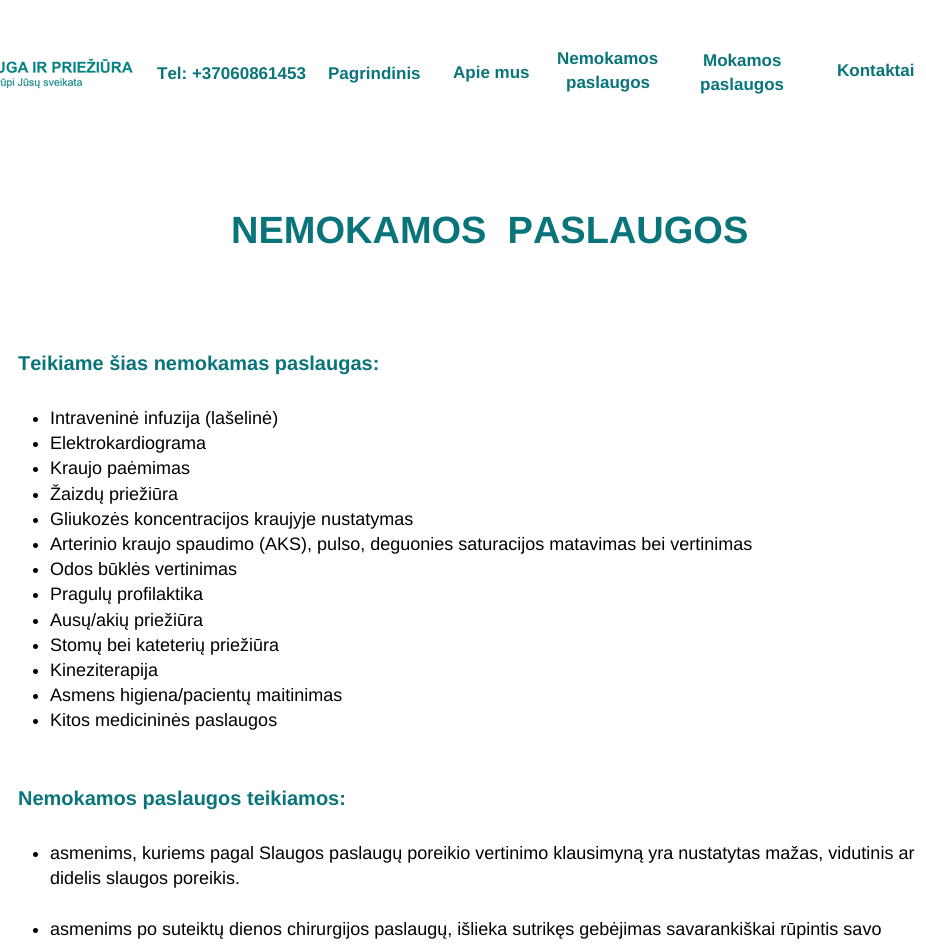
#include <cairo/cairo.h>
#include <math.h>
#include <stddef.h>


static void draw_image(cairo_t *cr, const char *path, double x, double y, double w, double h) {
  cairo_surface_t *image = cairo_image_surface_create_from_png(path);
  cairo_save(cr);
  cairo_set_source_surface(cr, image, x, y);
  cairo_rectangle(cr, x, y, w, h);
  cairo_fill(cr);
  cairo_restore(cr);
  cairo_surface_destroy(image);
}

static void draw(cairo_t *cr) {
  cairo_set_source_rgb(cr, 1, 1, 1);
  cairo_paint(cr);
  draw_image(cr, "images/1.png", 0, 58, 133, 31);
  cairo_set_source_rgb(cr, 0, 0, 0);
  cairo_arc(cr, 35.5, 419.5, 2.5, 0, 2 * M_PI);
  cairo_fill(cr);
  cairo_arc(cr, 35.5, 444.5, 2.5, 0, 2 * M_PI);
  cairo_fill(cr);
  cairo_arc(cr, 35.5, 469.5, 2.5, 0, 2 * M_PI);
  cairo_fill(cr);
  cairo_arc(cr, 35.5, 495.5, 2.5, 0, 2 * M_PI);
  cairo_fill(cr);
  cairo_arc(cr, 35.5, 520.5, 2.5, 0, 2 * M_PI);
  cairo_fill(cr);
  cairo_arc(cr, 35.5, 545.5, 2.5, 0, 2 * M_PI);
  cairo_fill(cr);
  cairo_arc(cr, 35.5, 570.5, 2.5, 0, 2 * M_PI);
  cairo_fill(cr);
  cairo_arc(cr, 35.5, 595.5, 2.5, 0, 2 * M_PI);
  cairo_fill(cr);
  cairo_arc(cr, 35.5, 621.5, 2.5, 0, 2 * M_PI);
  cairo_fill(cr);
  cairo_arc(cr, 35.5, 646.5, 2.5, 0, 2 * M_PI);
  cairo_fill(cr);
  cairo_arc(cr, 35.5, 671.5, 2.5, 0, 2 * M_PI);
  cairo_fill(cr);
  cairo_arc(cr, 35.5, 696.5, 2.5, 0, 2 * M_PI);
  cairo_fill(cr);
  cairo_arc(cr, 35.5, 721.5, 2.5, 0, 2 * M_PI);
  cairo_fill(cr);
  cairo_arc(cr, 35.5, 854.5, 2.5, 0, 2 * M_PI);
  cairo_fill(cr);
  cairo_arc(cr, 35.5, 930.5, 2.5, 0, 2 * M_PI);
  cairo_fill(cr);
  cairo_select_font_face(cr, "Liberation Sans", CAIRO_FONT_SLANT_NORMAL, CAIRO_FONT_WEIGHT_BOLD);
  cairo_set_font_size(cr, 17);
  cairo_set_source_rgb(cr, 9 / 255.0, 117 / 255.0, 122 / 255.0);
  cairo_move_to(cr, 157, 79);
  cairo_show_text(cr, "Tel: +37060861453");
  cairo_move_to(cr, 328, 79);
  cairo_show_text(cr, "Pagrindinis");
  cairo_move_to(cr, 453, 78);
  cairo_show_text(cr, "Apie mus");
  cairo_move_to(cr, 557, 64);
  cairo_show_text(cr, "Nemokamos");
  cairo_move_to(cr, 566, 88);
  cairo_show_text(cr, "paslaugos");
  cairo_move_to(cr, 703, 66);
  cairo_show_text(cr, "Mokamos");
  cairo_move_to(cr, 700, 90);
  cairo_show_text(cr, "paslaugos");
  cairo_move_to(cr, 837, 76);
  cairo_show_text(cr, "Kontaktai");
  cairo_set_font_size(cr, 38);
  cairo_move_to(cr, 231, 243);
  cairo_show_text(cr, "NEMOKAMOS  PASLAUGOS");
  cairo_set_font_size(cr, 20);
  cairo_move_to(cr, 18, 370);
  cairo_show_text(cr, "Teikiame šias nemokamas paslaugas:");
  cairo_select_font_face(cr, "Liberation Sans", CAIRO_FONT_SLANT_NORMAL, CAIRO_FONT_WEIGHT_NORMAL);
  cairo_set_font_size(cr, 18);
  cairo_set_source_rgb(cr, 0, 0, 0);
  cairo_move_to(cr, 50, 424);
  cairo_show_text(cr, "Intraveninė infuzija (lašelinė)");
  cairo_move_to(cr, 50, 449);
  cairo_show_text(cr, "Elektrokardiograma");
  cairo_move_to(cr, 50, 474);
  cairo_show_text(cr, "Kraujo paėmimas");
  cairo_move_to(cr, 50, 500);
  cairo_show_text(cr, "Žaizdų priežiūra");
  cairo_move_to(cr, 50, 525);
  cairo_show_text(cr, "Gliukozės koncentracijos kraujyje nustatymas");
  cairo_move_to(cr, 50, 550);
  cairo_show_text(cr, "Arterinio kraujo spaudimo (AKS), pulso, deguonies saturacijos matavimas bei vertinimas");
  cairo_move_to(cr, 50, 575);
  cairo_show_text(cr, "Odos būklės vertinimas");
  cairo_move_to(cr, 50, 600);
  cairo_show_text(cr, "Pragulų profilaktika");
  cairo_move_to(cr, 50, 626);
  cairo_show_text(cr, "Ausų/akių priežiūra");
  cairo_move_to(cr, 50, 651);
  cairo_show_text(cr, "Stomų bei kateterių priežiūra");
  cairo_move_to(cr, 50, 676);
  cairo_show_text(cr, "Kineziterapija");
  cairo_move_to(cr, 50, 701);
  cairo_show_text(cr, "Asmens higiena/pacientų maitinimas");
  cairo_move_to(cr, 50, 726);
  cairo_show_text(cr, "Kitos medicininės paslaugos");
  cairo_select_font_face(cr, "Liberation Sans", CAIRO_FONT_SLANT_NORMAL, CAIRO_FONT_WEIGHT_BOLD);
  cairo_set_font_size(cr, 20);
  cairo_set_source_rgb(cr, 9 / 255.0, 117 / 255.0, 122 / 255.0);
  cairo_move_to(cr, 18, 805);
  cairo_show_text(cr, "Nemokamos paslaugos teikiamos:");
  cairo_select_font_face(cr, "Liberation Sans", CAIRO_FONT_SLANT_NORMAL, CAIRO_FONT_WEIGHT_NORMAL);
  cairo_set_font_size(cr, 18);
  cairo_set_source_rgb(cr, 0, 0, 0);
  cairo_move_to(cr, 50, 859);
  cairo_show_text(cr, "asmenims, kuriems pagal Slaugos paslaugų poreikio vertinimo klausimyną yra nustatytas mažas, vidutinis ar");
  cairo_move_to(cr, 50, 884);
  cairo_show_text(cr, "didelis slaugos poreikis.");
  cairo_move_to(cr, 50, 935);
  cairo_show_text(cr, "asmenims po suteiktų dienos chirurgijos paslaugų, išlieka sutrikęs gebėjimas savarankiškai rūpintis savo");
}

int main(void) {
  cairo_surface_t *surface = cairo_image_surface_create(CAIRO_FORMAT_RGB24, 926, 948);
  cairo_t *cr = cairo_create(surface);
  cairo_font_options_t *options = cairo_font_options_create();
  cairo_font_options_set_hint_metrics(options, CAIRO_HINT_METRICS_OFF);
  cairo_font_options_set_hint_style(options, CAIRO_HINT_STYLE_NONE);
  cairo_set_font_options(cr, options);
  cairo_set_miter_limit(cr, 4);
  draw(cr);
  cairo_surface_write_to_png(surface, "out.png");
  cairo_font_options_destroy(options);
  cairo_destroy(cr);
  cairo_surface_destroy(surface);
  return 0;
}
